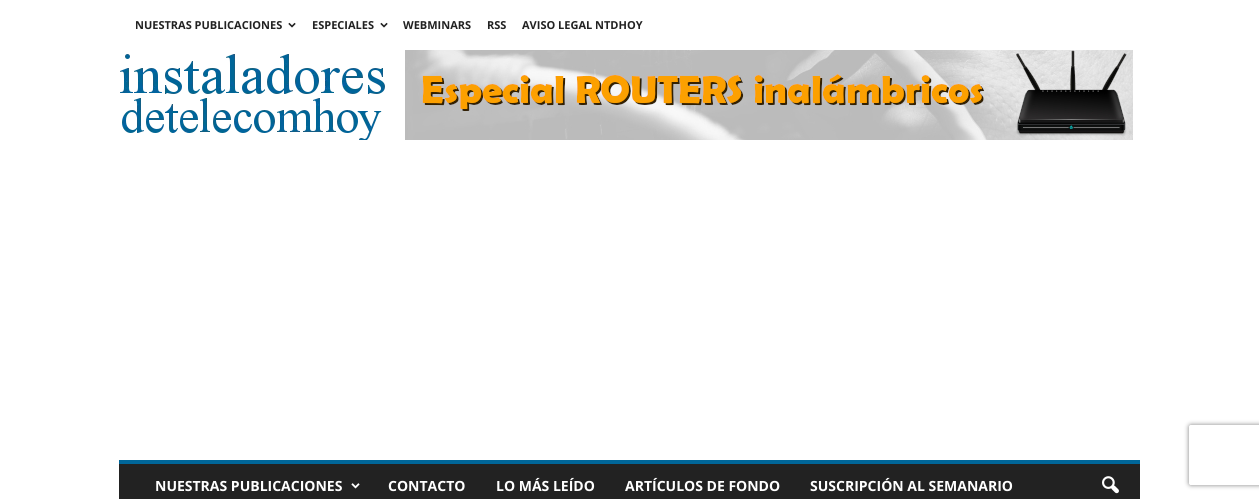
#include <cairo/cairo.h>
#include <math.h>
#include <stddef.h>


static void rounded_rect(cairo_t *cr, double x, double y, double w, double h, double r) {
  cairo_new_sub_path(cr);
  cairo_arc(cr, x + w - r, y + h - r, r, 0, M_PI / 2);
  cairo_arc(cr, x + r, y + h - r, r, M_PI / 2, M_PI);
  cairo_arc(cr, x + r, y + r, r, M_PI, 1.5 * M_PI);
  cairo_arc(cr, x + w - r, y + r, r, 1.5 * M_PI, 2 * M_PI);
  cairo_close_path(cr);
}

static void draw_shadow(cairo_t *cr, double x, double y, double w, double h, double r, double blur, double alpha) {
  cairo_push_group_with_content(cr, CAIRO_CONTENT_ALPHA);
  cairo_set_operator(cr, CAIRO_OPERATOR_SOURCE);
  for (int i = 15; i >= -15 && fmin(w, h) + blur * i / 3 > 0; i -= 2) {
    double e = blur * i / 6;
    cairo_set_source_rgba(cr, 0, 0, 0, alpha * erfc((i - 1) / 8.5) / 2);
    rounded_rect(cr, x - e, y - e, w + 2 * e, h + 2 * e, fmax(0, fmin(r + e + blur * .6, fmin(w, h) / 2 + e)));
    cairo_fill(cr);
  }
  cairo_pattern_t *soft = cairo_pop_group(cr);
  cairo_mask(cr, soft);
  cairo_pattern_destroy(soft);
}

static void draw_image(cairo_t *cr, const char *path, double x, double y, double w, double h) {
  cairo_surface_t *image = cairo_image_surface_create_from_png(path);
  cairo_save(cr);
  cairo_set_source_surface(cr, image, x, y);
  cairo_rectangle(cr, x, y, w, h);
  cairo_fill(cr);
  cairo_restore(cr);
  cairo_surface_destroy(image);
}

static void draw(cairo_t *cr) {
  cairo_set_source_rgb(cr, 1, 1, 1);
  cairo_paint(cr);
  draw_image(cr, "images/1.png", 288, 22, 8, 6);
  draw_image(cr, "images/1.png", 380, 22, 8, 6);
  draw_image(cr, "images/2.png", 120, 54, 265, 86);
  draw_image(cr, "images/3.png", 405, 50, 728, 90);
  cairo_set_source_rgb(cr, 34 / 255.0, 34 / 255.0, 34 / 255.0);
  cairo_rectangle(cr, 119, 464, 1021, 35);
  cairo_fill(cr);
  cairo_set_source_rgb(cr, 0, 102 / 255.0, 153 / 255.0);
  cairo_rectangle(cr, 119, 460, 1021, 4);
  cairo_fill(cr);
  draw_image(cr, "images/4.png", 351, 483, 9, 6);
  draw_image(cr, "images/5.png", 1102, 476, 17, 18);
  cairo_save(cr);
  cairo_set_fill_rule(cr, CAIRO_FILL_RULE_EVEN_ODD);
  cairo_new_path(cr);
  cairo_move_to(cr, 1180, 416);
  cairo_line_to(cr, 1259, 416);
  cairo_line_to(cr, 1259, 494);
  cairo_line_to(cr, 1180, 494);
  cairo_close_path(cr);
  cairo_move_to(cr, 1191, 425);
  cairo_line_to(cr, 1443, 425);
  cairo_curve_to(cr, 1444, 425, 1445, 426, 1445, 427);
  cairo_line_to(cr, 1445, 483);
  cairo_curve_to(cr, 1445, 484, 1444, 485, 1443, 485);
  cairo_line_to(cr, 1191, 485);
  cairo_curve_to(cr, 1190, 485, 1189, 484, 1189, 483);
  cairo_line_to(cr, 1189, 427);
  cairo_curve_to(cr, 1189, 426, 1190, 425, 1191, 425);
  cairo_close_path(cr);
  cairo_clip(cr);
  cairo_set_source_rgb(cr, 128 / 255.0, 128 / 255.0, 128 / 255.0);
  draw_shadow(cr, 1189, 425, 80, 60, 2, 2.5, 1);
  cairo_restore(cr);
  cairo_select_font_face(cr, "Open Sans", CAIRO_FONT_SLANT_NORMAL, CAIRO_FONT_WEIGHT_BOLD);
  cairo_set_font_size(cr, 11);
  cairo_set_source_rgb(cr, 34 / 255.0, 34 / 255.0, 34 / 255.0);
  cairo_move_to(cr, 135, 29);
  cairo_show_text(cr, "NUESTRAS PUBLICACIONES");
  cairo_move_to(cr, 312, 29);
  cairo_show_text(cr, "ESPECIALES");
  cairo_move_to(cr, 403, 29);
  cairo_show_text(cr, "WEBMINARS");
  cairo_move_to(cr, 487, 29);
  cairo_show_text(cr, "RSS");
  cairo_move_to(cr, 522, 29);
  cairo_show_text(cr, "AVISO LEGAL NTDHOY");
  cairo_set_font_size(cr, 14);
  cairo_set_source_rgb(cr, 1, 1, 1);
  cairo_move_to(cr, 155, 491);
  cairo_show_text(cr, "NUESTRAS PUBLICACIONES");
  cairo_move_to(cr, 388, 491);
  cairo_show_text(cr, "CONTACTO");
  cairo_move_to(cr, 496, 491);
  cairo_show_text(cr, "LO MÁS LEÍDO");
  cairo_move_to(cr, 625, 491);
  cairo_show_text(cr, "ARTÍCULOS DE FONDO");
  cairo_move_to(cr, 810, 491);
  cairo_show_text(cr, "SUSCRIPCIÓN AL SEMANARIO");
}

int main(void) {
  cairo_surface_t *surface = cairo_image_surface_create(CAIRO_FORMAT_RGB24, 1259, 499);
  cairo_t *cr = cairo_create(surface);
  cairo_font_options_t *options = cairo_font_options_create();
  cairo_font_options_set_hint_metrics(options, CAIRO_HINT_METRICS_OFF);
  cairo_font_options_set_hint_style(options, CAIRO_HINT_STYLE_NONE);
  cairo_set_font_options(cr, options);
  cairo_set_miter_limit(cr, 4);
  draw(cr);
  cairo_surface_write_to_png(surface, "out.png");
  cairo_font_options_destroy(options);
  cairo_destroy(cr);
  cairo_surface_destroy(surface);
  return 0;
}
